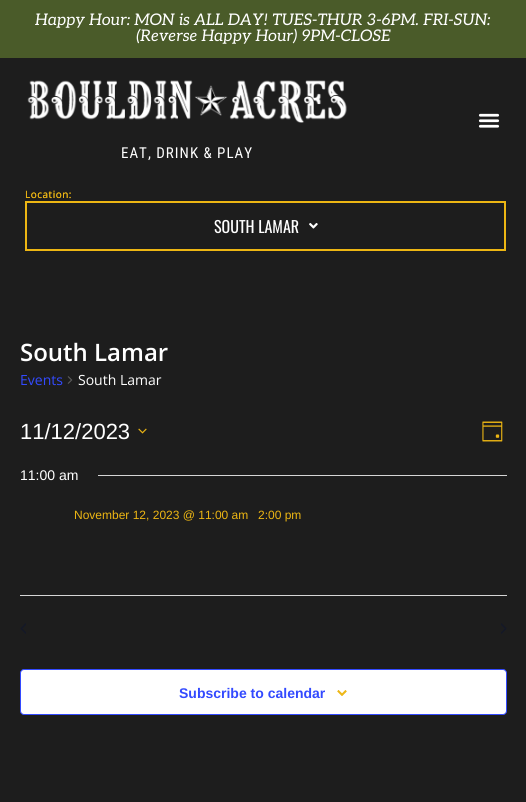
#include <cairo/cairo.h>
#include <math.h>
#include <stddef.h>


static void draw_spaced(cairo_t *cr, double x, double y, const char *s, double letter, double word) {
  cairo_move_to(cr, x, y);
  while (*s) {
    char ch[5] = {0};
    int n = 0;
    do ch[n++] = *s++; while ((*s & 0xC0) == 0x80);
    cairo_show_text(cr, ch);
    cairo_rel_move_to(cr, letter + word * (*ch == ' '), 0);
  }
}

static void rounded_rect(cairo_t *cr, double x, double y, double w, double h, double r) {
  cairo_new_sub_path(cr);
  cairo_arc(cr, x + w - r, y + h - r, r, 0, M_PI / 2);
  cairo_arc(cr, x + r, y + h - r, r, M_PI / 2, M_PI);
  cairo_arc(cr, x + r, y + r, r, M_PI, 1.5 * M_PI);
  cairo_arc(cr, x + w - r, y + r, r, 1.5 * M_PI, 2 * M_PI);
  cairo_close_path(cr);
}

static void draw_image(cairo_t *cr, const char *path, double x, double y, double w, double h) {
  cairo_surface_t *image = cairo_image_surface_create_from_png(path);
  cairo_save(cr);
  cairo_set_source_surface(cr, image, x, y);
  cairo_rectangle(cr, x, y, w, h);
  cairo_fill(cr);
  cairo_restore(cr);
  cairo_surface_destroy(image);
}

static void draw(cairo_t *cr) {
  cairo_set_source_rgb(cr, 29 / 255.0, 29 / 255.0, 29 / 255.0);
  cairo_paint(cr);
  cairo_set_source_rgb(cr, 74 / 255.0, 91 / 255.0, 41 / 255.0);
  cairo_rectangle(cr, 0, 0, 526, 58);
  cairo_fill(cr);
  draw_image(cr, "images/1.png", 478, 113, 22, 15);
  draw_image(cr, "images/2.png", 27, 80, 320, 43);
  cairo_rectangle(cr, 25.5, 201.5, 480, 49);
  cairo_set_source_rgb(cr, 237 / 255.0, 182 / 255.0, 19 / 255.0);
  cairo_set_line_width(cr, 1);
  cairo_stroke(cr);
  cairo_rectangle(cr, 26.5, 202.5, 478, 47);
  cairo_stroke(cr);
  draw_image(cr, "images/3.png", 309, 223, 9, 6);
  draw_image(cr, "images/4.png", 67, 376, 6, 8);
  draw_image(cr, "images/5.png", 138, 428, 9, 6);
  draw_image(cr, "images/6.png", 482, 421, 21, 21);
  cairo_set_source_rgb(cr, 213 / 255.0, 213 / 255.0, 213 / 255.0);
  cairo_rectangle(cr, 98, 475, 409, 1);
  cairo_fill(cr);
  cairo_rectangle(cr, 20, 595, 487, 1);
  cairo_fill(cr);
  draw_image(cr, "images/7.png", 20, 623, 6, 11);
  draw_image(cr, "images/8.png", 501, 623, 6, 11);
  cairo_set_source_rgb(cr, 1, 1, 1);
  rounded_rect(cr, 20.5, 669.5, 486, 45, 3.5);
  cairo_fill_preserve(cr);
  cairo_set_source_rgb(cr, 51 / 255.0, 74 / 255.0, 1);
  cairo_stroke(cr);
  draw_image(cr, "images/9.png", 337, 690, 10, 6);
  cairo_select_font_face(cr, "Aleo", CAIRO_FONT_SLANT_ITALIC, CAIRO_FONT_WEIGHT_NORMAL);
  cairo_set_font_size(cr, 16);
  cairo_set_source_rgb(cr, 1, 1, 1);
  cairo_move_to(cr, 35, 25);
  cairo_show_text(cr, "Happy Hour: MON is ALL DAY! TUES-THUR 3-6PM. FRI-SUN:");
  cairo_move_to(cr, 136, 41);
  cairo_show_text(cr, "(Reverse Happy Hour) 9PM-CLOSE");
  cairo_select_font_face(cr, "Roboto Condensed", CAIRO_FONT_SLANT_NORMAL, CAIRO_FONT_WEIGHT_NORMAL);
  cairo_set_font_size(cr, 15);
  draw_spaced(cr, 121, 158, "EAT, DRINK & PLAY", 1, 0);
  cairo_select_font_face(cr, "Open Sans", CAIRO_FONT_SLANT_NORMAL, CAIRO_FONT_WEIGHT_NORMAL);
  cairo_set_font_size(cr, 10);
  cairo_set_source_rgb(cr, 237 / 255.0, 182 / 255.0, 19 / 255.0);
  draw_spaced(cr, 25, 198, "Location:", 0.5, 0);
  cairo_select_font_face(cr, "Oswald", CAIRO_FONT_SLANT_NORMAL, CAIRO_FONT_WEIGHT_NORMAL);
  cairo_set_font_size(cr, 16);
  cairo_set_source_rgb(cr, 1, 1, 1);
  cairo_move_to(cr, 214, 233);
  cairo_show_text(cr, "SOUTH LAMAR");
  cairo_select_font_face(cr, "Open Sans", CAIRO_FONT_SLANT_NORMAL, CAIRO_FONT_WEIGHT_NORMAL);
  cairo_set_font_size(cr, 10);
  cairo_set_source_rgb(cr, 237 / 255.0, 182 / 255.0, 19 / 255.0);
  draw_spaced(cr, 25, 198, "Location:", 0.5, 0);
  cairo_select_font_face(cr, "Open Sans SemiBold", CAIRO_FONT_SLANT_NORMAL, CAIRO_FONT_WEIGHT_NORMAL);
  cairo_set_font_size(cr, 24);
  cairo_set_source_rgb(cr, 1, 1, 1);
  cairo_move_to(cr, 20, 361);
  cairo_show_text(cr, "South Lamar");
  cairo_select_font_face(cr, "Open Sans", CAIRO_FONT_SLANT_NORMAL, CAIRO_FONT_WEIGHT_NORMAL);
  cairo_set_font_size(cr, 14);
  cairo_set_source_rgb(cr, 51 / 255.0, 74 / 255.0, 1);
  cairo_move_to(cr, 20, 385);
  cairo_show_text(cr, "Events");
  cairo_set_source_rgb(cr, 1, 1, 1);
  cairo_move_to(cr, 78, 385);
  cairo_show_text(cr, "South Lamar");
  cairo_select_font_face(cr, "Liberation Sans", CAIRO_FONT_SLANT_NORMAL, CAIRO_FONT_WEIGHT_NORMAL);
  cairo_set_font_size(cr, 22);
  cairo_move_to(cr, 20, 439);
  cairo_show_text(cr, "11/12/2023");
  cairo_set_font_size(cr, 14);
  cairo_move_to(cr, 20, 480);
  cairo_show_text(cr, "11:00 am");
  cairo_set_font_size(cr, 12);
  cairo_set_source_rgb(cr, 237 / 255.0, 182 / 255.0, 19 / 255.0);
  cairo_move_to(cr, 74, 519);
  cairo_show_text(cr, "November 12, 2023 @ 11:00 am");
  cairo_move_to(cr, 258, 519);
  cairo_show_text(cr, "2:00 pm");
  cairo_select_font_face(cr, "Liberation Sans", CAIRO_FONT_SLANT_NORMAL, CAIRO_FONT_WEIGHT_BOLD);
  cairo_set_font_size(cr, 14);
  cairo_set_source_rgb(cr, 51 / 255.0, 74 / 255.0, 1);
  cairo_move_to(cr, 179, 698);
  cairo_show_text(cr, "Subscribe to calendar");
}

int main(void) {
  cairo_surface_t *surface = cairo_image_surface_create(CAIRO_FORMAT_RGB24, 526, 802);
  cairo_t *cr = cairo_create(surface);
  cairo_font_options_t *options = cairo_font_options_create();
  cairo_font_options_set_hint_metrics(options, CAIRO_HINT_METRICS_OFF);
  cairo_font_options_set_hint_style(options, CAIRO_HINT_STYLE_NONE);
  cairo_set_font_options(cr, options);
  cairo_set_miter_limit(cr, 4);
  draw(cr);
  cairo_surface_write_to_png(surface, "out.png");
  cairo_font_options_destroy(options);
  cairo_destroy(cr);
  cairo_surface_destroy(surface);
  return 0;
}
